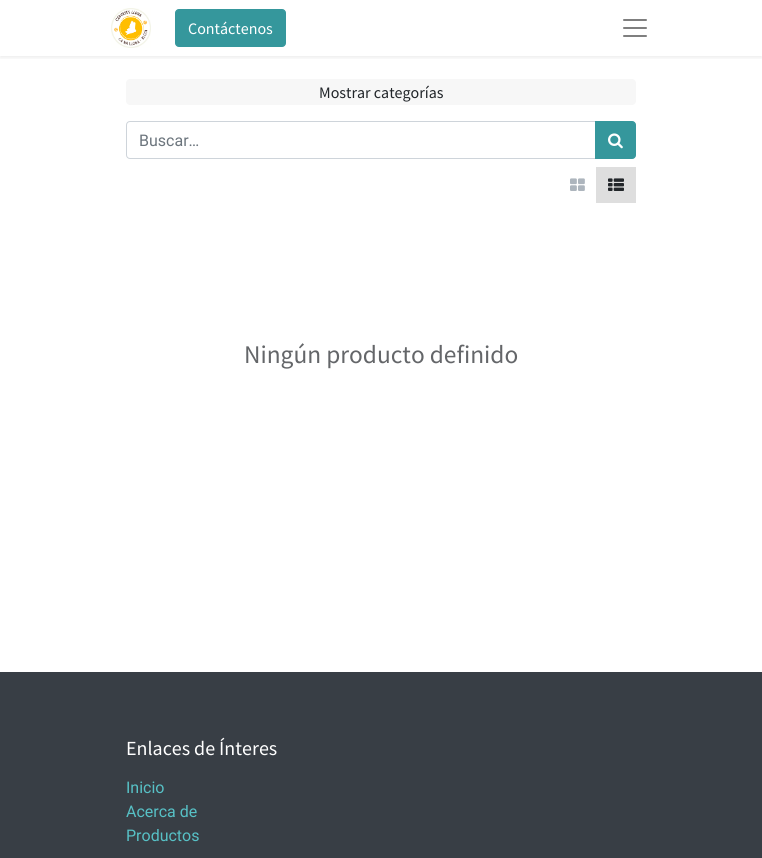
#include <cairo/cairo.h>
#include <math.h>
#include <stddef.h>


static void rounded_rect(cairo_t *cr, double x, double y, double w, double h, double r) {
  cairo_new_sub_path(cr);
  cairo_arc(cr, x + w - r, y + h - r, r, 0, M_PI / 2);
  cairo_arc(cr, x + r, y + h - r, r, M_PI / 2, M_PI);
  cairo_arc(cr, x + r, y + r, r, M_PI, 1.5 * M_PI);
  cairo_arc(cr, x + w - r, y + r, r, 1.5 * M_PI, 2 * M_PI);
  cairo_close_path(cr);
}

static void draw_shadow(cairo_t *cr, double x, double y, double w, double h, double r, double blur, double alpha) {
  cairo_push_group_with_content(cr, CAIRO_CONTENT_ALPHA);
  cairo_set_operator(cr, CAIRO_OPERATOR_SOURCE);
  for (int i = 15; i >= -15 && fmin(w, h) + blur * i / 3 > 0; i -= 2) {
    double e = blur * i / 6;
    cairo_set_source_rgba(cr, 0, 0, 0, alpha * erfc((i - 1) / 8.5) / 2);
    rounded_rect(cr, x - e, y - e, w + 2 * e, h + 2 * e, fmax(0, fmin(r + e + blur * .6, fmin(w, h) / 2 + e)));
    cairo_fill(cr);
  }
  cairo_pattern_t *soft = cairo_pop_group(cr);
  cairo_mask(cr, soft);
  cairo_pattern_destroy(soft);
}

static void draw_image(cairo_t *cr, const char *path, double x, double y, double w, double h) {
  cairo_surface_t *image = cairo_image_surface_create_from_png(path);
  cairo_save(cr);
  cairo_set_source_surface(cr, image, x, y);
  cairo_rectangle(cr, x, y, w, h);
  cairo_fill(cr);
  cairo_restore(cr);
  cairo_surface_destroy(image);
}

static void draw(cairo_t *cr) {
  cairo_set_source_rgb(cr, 1, 1, 1);
  cairo_paint(cr);
  cairo_save(cr);
  cairo_rectangle(cr, 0, 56, 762, 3);
  cairo_clip(cr);
  cairo_set_source_rgb(cr, 0, 0, 0);
  draw_shadow(cr, 0, 2, 762, 56, 0, 2, 0.07);
  cairo_restore(cr);
  draw_image(cr, "images/1.png", 111, 8, 40, 40);
  cairo_set_source_rgb(cr, 53 / 255.0, 151 / 255.0, 156 / 255.0);
  rounded_rect(cr, 175.5, 9.5, 110, 37, 3.5);
  cairo_fill_preserve(cr);
  cairo_set_line_width(cr, 1);
  cairo_stroke(cr);
  draw_image(cr, "images/2.png", 623, 19, 24, 18);
  cairo_set_source_rgb(cr, 247 / 255.0, 247 / 255.0, 247 / 255.0);
  rounded_rect(cr, 126, 79, 510, 26, 4);
  cairo_fill(cr);
  cairo_new_path(cr);
  cairo_move_to(cr, 130, 121.5);
  cairo_line_to(cr, 595.5, 121.5);
  cairo_line_to(cr, 595.5, 158.5);
  cairo_line_to(cr, 130, 158.5);
  cairo_curve_to(cr, 128, 158.5, 126.5, 157, 126.5, 155);
  cairo_line_to(cr, 126.5, 125);
  cairo_curve_to(cr, 126.5, 123, 128, 121.5, 130, 121.5);
  cairo_close_path(cr);
  cairo_set_source_rgb(cr, 206 / 255.0, 212 / 255.0, 218 / 255.0);
  cairo_stroke(cr);
  cairo_set_source_rgb(cr, 53 / 255.0, 151 / 255.0, 156 / 255.0);
  cairo_new_path(cr);
  cairo_move_to(cr, 595.5, 121.5);
  cairo_line_to(cr, 632, 121.5);
  cairo_curve_to(cr, 634, 121.5, 635.5, 123, 635.5, 125);
  cairo_line_to(cr, 635.5, 155);
  cairo_curve_to(cr, 635.5, 157, 634, 158.5, 632, 158.5);
  cairo_line_to(cr, 595.5, 158.5);
  cairo_close_path(cr);
  cairo_fill_preserve(cr);
  cairo_stroke(cr);
  draw_image(cr, "images/3.png", 608, 133, 15, 16);
  draw_image(cr, "images/4.png", 570, 178, 15, 13);
  cairo_set_source_rgb(cr, 222 / 255.0, 222 / 255.0, 222 / 255.0);
  cairo_rectangle(cr, 596, 167, 40, 36);
  cairo_fill(cr);
  draw_image(cr, "images/5.png", 608, 178, 16, 13);
  cairo_set_source_rgb(cr, 56 / 255.0, 62 / 255.0, 69 / 255.0);
  cairo_rectangle(cr, 0, 672, 762, 186);
  cairo_fill(cr);
  cairo_select_font_face(cr, "Source Sans Pro", CAIRO_FONT_SLANT_NORMAL, CAIRO_FONT_WEIGHT_NORMAL);
  cairo_set_font_size(cr, 16);
  cairo_set_source_rgb(cr, 1, 1, 1);
  cairo_move_to(cr, 188, 34);
  cairo_show_text(cr, "Contáctenos");
  cairo_set_source_rgb(cr, 33 / 255.0, 37 / 255.0, 41 / 255.0);
  cairo_move_to(cr, 319, 98);
  cairo_show_text(cr, "Mostrar categorías");
  cairo_select_font_face(cr, "Roboto", CAIRO_FONT_SLANT_NORMAL, CAIRO_FONT_WEIGHT_NORMAL);
  cairo_set_source_rgb(cr, 108 / 255.0, 117 / 255.0, 125 / 255.0);
  cairo_move_to(cr, 139, 146);
  cairo_show_text(cr, "Buscar…");
  cairo_select_font_face(cr, "Source Sans Pro", CAIRO_FONT_SLANT_NORMAL, CAIRO_FONT_WEIGHT_NORMAL);
  cairo_set_font_size(cr, 25.4);
  cairo_set_source_rgb(cr, 100 / 255.0, 102 / 255.0, 105 / 255.0);
  cairo_move_to(cr, 244, 363);
  cairo_show_text(cr, "Ningún producto definido");
  cairo_set_font_size(cr, 20);
  cairo_set_source_rgb(cr, 1, 1, 1);
  cairo_move_to(cr, 126, 755);
  cairo_show_text(cr, "Enlaces de Ínteres");
  cairo_select_font_face(cr, "Roboto", CAIRO_FONT_SLANT_NORMAL, CAIRO_FONT_WEIGHT_NORMAL);
  cairo_set_font_size(cr, 16);
  cairo_set_source_rgb(cr, 87 / 255.0, 193 / 255.0, 198 / 255.0);
  cairo_move_to(cr, 126, 793);
  cairo_show_text(cr, "Inicio");
  cairo_move_to(cr, 126, 817);
  cairo_show_text(cr, "Acerca de");
  cairo_move_to(cr, 126, 841);
  cairo_show_text(cr, "Productos");
}

int main(void) {
  cairo_surface_t *surface = cairo_image_surface_create(CAIRO_FORMAT_RGB24, 762, 858);
  cairo_t *cr = cairo_create(surface);
  cairo_font_options_t *options = cairo_font_options_create();
  cairo_font_options_set_hint_metrics(options, CAIRO_HINT_METRICS_OFF);
  cairo_font_options_set_hint_style(options, CAIRO_HINT_STYLE_NONE);
  cairo_set_font_options(cr, options);
  cairo_set_miter_limit(cr, 4);
  draw(cr);
  cairo_surface_write_to_png(surface, "out.png");
  cairo_font_options_destroy(options);
  cairo_destroy(cr);
  cairo_surface_destroy(surface);
  return 0;
}
